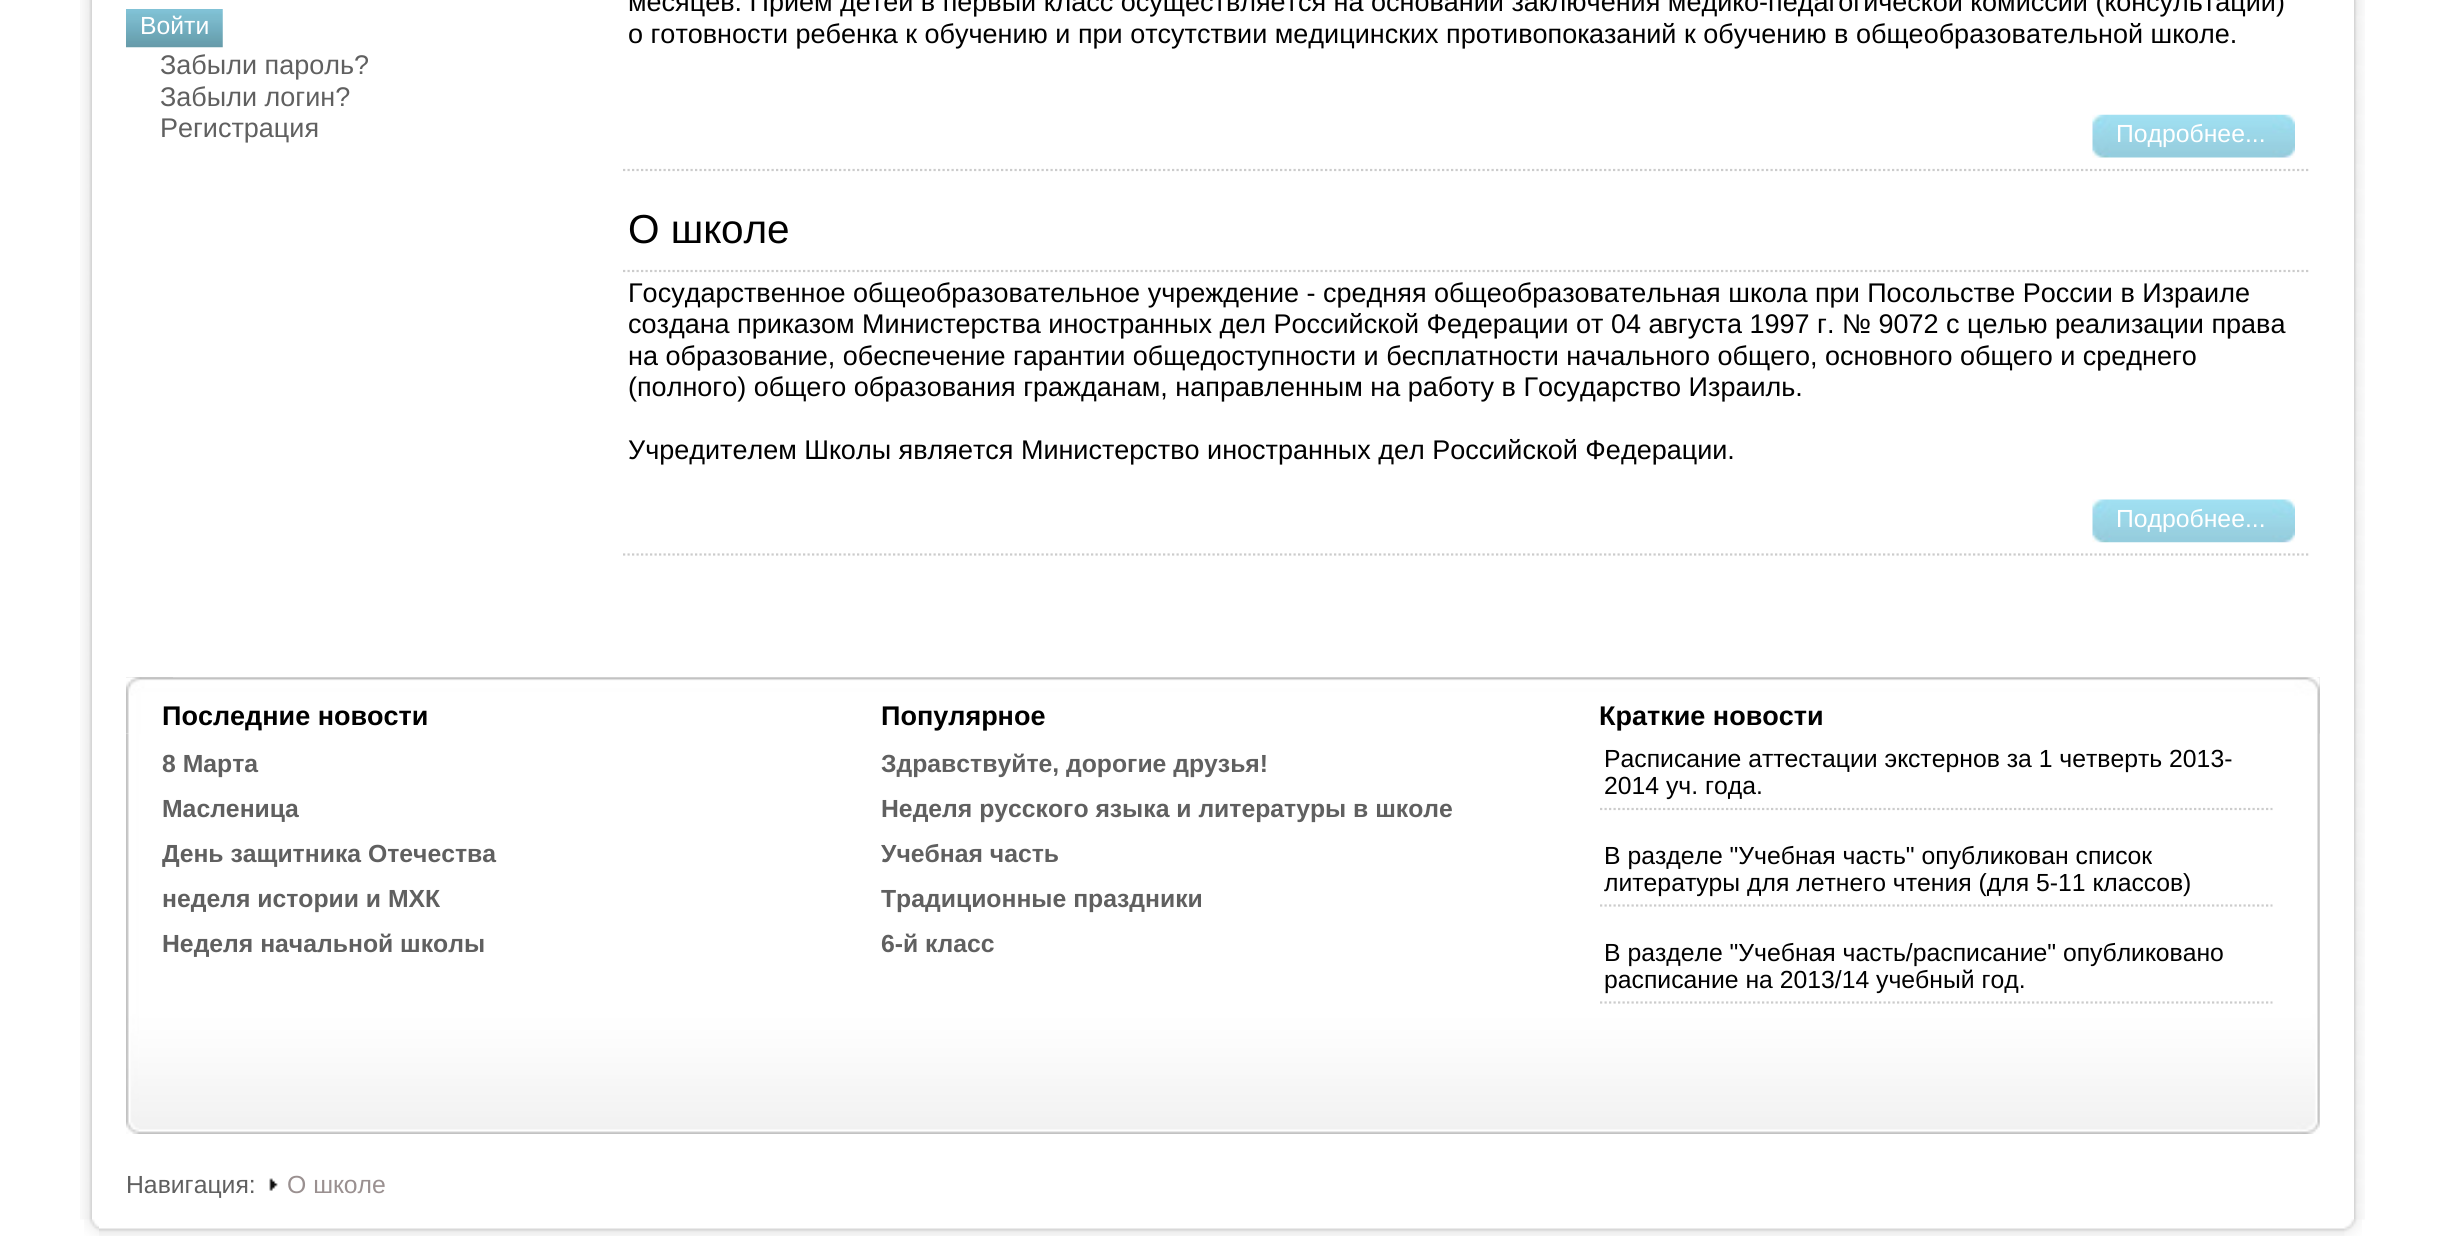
#include <cairo/cairo.h>
#include <math.h>
#include <stddef.h>


static void draw_image(cairo_t *cr, const char *path, double x, double y, double w, double h) {
  cairo_surface_t *image = cairo_image_surface_create_from_png(path);
  cairo_save(cr);
  cairo_set_source_surface(cr, image, x, y);
  cairo_rectangle(cr, x, y, w, h);
  cairo_fill(cr);
  cairo_restore(cr);
  cairo_surface_destroy(image);
}

static void draw(cairo_t *cr) {
  cairo_set_source_rgb(cr, 1, 1, 1);
  cairo_paint(cr);
  draw_image(cr, "images/1.png", 80, 0, 12, 1220);
  draw_image(cr, "images/2.png", 2354, 0, 11, 1220);
  draw_image(cr, "images/3.png", 126, 9, 97, 39);
  cairo_new_path(cr);
  cairo_move_to(cr, 623, 170);
  cairo_line_to(cr, 2308.5, 170);
  cairo_set_source_rgb(cr, 204 / 255.0, 204 / 255.0, 204 / 255.0);
  cairo_set_line_width(cr, 2.2);
  cairo_set_dash(cr, (double[]){2.25, 2.25}, 2, 0);
  cairo_stroke(cr);
  draw_image(cr, "images/4.png", 2092, 114, 203, 44);
  cairo_new_path(cr);
  cairo_move_to(cr, 623, 271);
  cairo_line_to(cr, 2308.5, 271);
  cairo_stroke(cr);
  cairo_new_path(cr);
  cairo_move_to(cr, 623, 554.5);
  cairo_line_to(cr, 2308.5, 554.5);
  cairo_stroke(cr);
  draw_image(cr, "images/5.png", 2092, 499, 203, 44);
  draw_image(cr, "images/6.png", 126, 677, 2194, 457);
  draw_image(cr, "images/7.png", 126, 677, 13, 457);
  draw_image(cr, "images/8.png", 126, 677, 2194, 57);
  draw_image(cr, "images/9.png", 126, 677, 47, 57);
  cairo_new_path(cr);
  cairo_move_to(cr, 1600, 809);
  cairo_line_to(cr, 2272.5, 809);
  cairo_stroke(cr);
  cairo_new_path(cr);
  cairo_move_to(cr, 1600, 905.5);
  cairo_line_to(cr, 2272.5, 905.5);
  cairo_stroke(cr);
  cairo_new_path(cr);
  cairo_move_to(cr, 1600, 1002.5);
  cairo_line_to(cr, 2272.5, 1002.5);
  cairo_stroke(cr);
  draw_image(cr, "images/10.png", 269, 1178, 9, 13);
  draw_image(cr, "images/11.png", 84, 1219, 15, 17);
  draw_image(cr, "images/12.png", 99, 1228, 2246, 8);
  draw_image(cr, "images/13.png", 2344, 1219, 18, 17);
  cairo_select_font_face(cr, "Liberation Sans", CAIRO_FONT_SLANT_NORMAL, CAIRO_FONT_WEIGHT_NORMAL);
  cairo_set_font_size(cr, 24.75);
  cairo_set_source_rgb(cr, 1, 1, 1);
  cairo_move_to(cr, 140, 34);
  cairo_show_text(cr, "Войти");
  cairo_set_font_size(cr, 27);
  cairo_set_source_rgb(cr, 96 / 255.0, 96 / 255.0, 96 / 255.0);
  cairo_move_to(cr, 160, 74);
  cairo_show_text(cr, "Забыли пароль?");
  cairo_move_to(cr, 160, 106);
  cairo_show_text(cr, "Забыли логин?");
  cairo_move_to(cr, 160, 137);
  cairo_show_text(cr, "Регистрация");
  cairo_set_source_rgb(cr, 0, 0, 0);
  cairo_move_to(cr, 628, 11);
  cairo_show_text(cr, "месяцев. Прием детей в первый класс осуществляется на основании заключения медико-педагогической комиссии (консультации)");
  cairo_move_to(cr, 628, 43);
  cairo_show_text(cr, "о готовности ребенка к обучению и при отсутствии медицинских противопоказаний к обучению в общеобразовательной школе.");
  cairo_set_font_size(cr, 24.75);
  cairo_set_source_rgb(cr, 1, 1, 1);
  cairo_move_to(cr, 2116, 142);
  cairo_show_text(cr, "Подробнее...");
  cairo_set_font_size(cr, 40.5);
  cairo_set_source_rgb(cr, 0, 0, 0);
  cairo_move_to(cr, 628, 243);
  cairo_show_text(cr, "О школе");
  cairo_set_font_size(cr, 27);
  cairo_move_to(cr, 628, 302);
  cairo_show_text(cr, "Государственное общеобразовательное учреждение - средняя общеобразовательная школа при Посольстве России в Израиле");
  cairo_move_to(cr, 628, 333);
  cairo_show_text(cr, "создана приказом Министерства иностранных дел Российской Федерации от 04 августа 1997 г. № 9072 с целью реализации права");
  cairo_move_to(cr, 628, 365);
  cairo_show_text(cr, "на образование, обеспечение гарантии общедоступности и бесплатности начального общего, основного общего и среднего");
  cairo_move_to(cr, 628, 396);
  cairo_show_text(cr, "(полного) общего образования гражданам, направленным на работу в Государство Израиль.");
  cairo_move_to(cr, 628, 459);
  cairo_show_text(cr, "Учредителем Школы является Министерство иностранных дел Российской Федерации.");
  cairo_set_font_size(cr, 24.75);
  cairo_set_source_rgb(cr, 1, 1, 1);
  cairo_move_to(cr, 2116, 527);
  cairo_show_text(cr, "Подробнее...");
  cairo_select_font_face(cr, "Liberation Sans", CAIRO_FONT_SLANT_NORMAL, CAIRO_FONT_WEIGHT_BOLD);
  cairo_set_font_size(cr, 27);
  cairo_set_source_rgb(cr, 0, 0, 0);
  cairo_move_to(cr, 162, 725);
  cairo_show_text(cr, "Последние новости");
  cairo_set_font_size(cr, 24.75);
  cairo_set_source_rgb(cr, 96 / 255.0, 96 / 255.0, 96 / 255.0);
  cairo_move_to(cr, 162, 772);
  cairo_show_text(cr, "8 Марта");
  cairo_move_to(cr, 162, 817);
  cairo_show_text(cr, "Масленица");
  cairo_move_to(cr, 162, 862);
  cairo_show_text(cr, "День защитника Отечества");
  cairo_move_to(cr, 162, 907);
  cairo_show_text(cr, "неделя истории и МХК");
  cairo_move_to(cr, 162, 952);
  cairo_show_text(cr, "Неделя начальной школы");
  cairo_set_font_size(cr, 27);
  cairo_set_source_rgb(cr, 0, 0, 0);
  cairo_move_to(cr, 881, 725);
  cairo_show_text(cr, "Популярное");
  cairo_set_font_size(cr, 24.75);
  cairo_set_source_rgb(cr, 96 / 255.0, 96 / 255.0, 96 / 255.0);
  cairo_move_to(cr, 881, 772);
  cairo_show_text(cr, "Здравствуйте, дорогие друзья!");
  cairo_move_to(cr, 881, 817);
  cairo_show_text(cr, "Неделя русского языка и литературы в школе");
  cairo_move_to(cr, 881, 862);
  cairo_show_text(cr, "Учебная часть");
  cairo_move_to(cr, 881, 907);
  cairo_show_text(cr, "Традиционные праздники");
  cairo_move_to(cr, 881, 952);
  cairo_show_text(cr, "6-й класс");
  cairo_set_font_size(cr, 27);
  cairo_set_source_rgb(cr, 0, 0, 0);
  cairo_move_to(cr, 1599, 725);
  cairo_show_text(cr, "Краткие новости");
  cairo_select_font_face(cr, "Liberation Sans", CAIRO_FONT_SLANT_NORMAL, CAIRO_FONT_WEIGHT_NORMAL);
  cairo_set_font_size(cr, 24.75);
  cairo_move_to(cr, 1604, 767);
  cairo_show_text(cr, "Расписание аттестации экстернов за 1 четверть 2013-");
  cairo_move_to(cr, 1604, 794);
  cairo_show_text(cr, "2014 уч. года.");
  cairo_move_to(cr, 1604, 864);
  cairo_show_text(cr, "В разделе \"Учебная часть\" опубликован список");
  cairo_move_to(cr, 1604, 891);
  cairo_show_text(cr, "литературы для летнего чтения (для 5-11 классов)");
  cairo_move_to(cr, 1604, 961);
  cairo_show_text(cr, "В разделе \"Учебная часть/расписание\" опубликовано");
  cairo_move_to(cr, 1604, 988);
  cairo_show_text(cr, "расписание на 2013/14 учебный год.");
  cairo_set_source_rgb(cr, 96 / 255.0, 96 / 255.0, 96 / 255.0);
  cairo_move_to(cr, 126, 1193);
  cairo_show_text(cr, "Навигация:");
  cairo_set_source_rgb(cr, 154 / 255.0, 144 / 255.0, 144 / 255.0);
  cairo_move_to(cr, 287, 1193);
  cairo_show_text(cr, "О школе");
}

int main(void) {
  cairo_surface_t *surface = cairo_image_surface_create(CAIRO_FORMAT_RGB24, 2443, 1236);
  cairo_t *cr = cairo_create(surface);
  cairo_font_options_t *options = cairo_font_options_create();
  cairo_font_options_set_hint_metrics(options, CAIRO_HINT_METRICS_OFF);
  cairo_font_options_set_hint_style(options, CAIRO_HINT_STYLE_NONE);
  cairo_set_font_options(cr, options);
  cairo_set_miter_limit(cr, 4);
  draw(cr);
  cairo_surface_write_to_png(surface, "out.png");
  cairo_font_options_destroy(options);
  cairo_destroy(cr);
  cairo_surface_destroy(surface);
  return 0;
}
